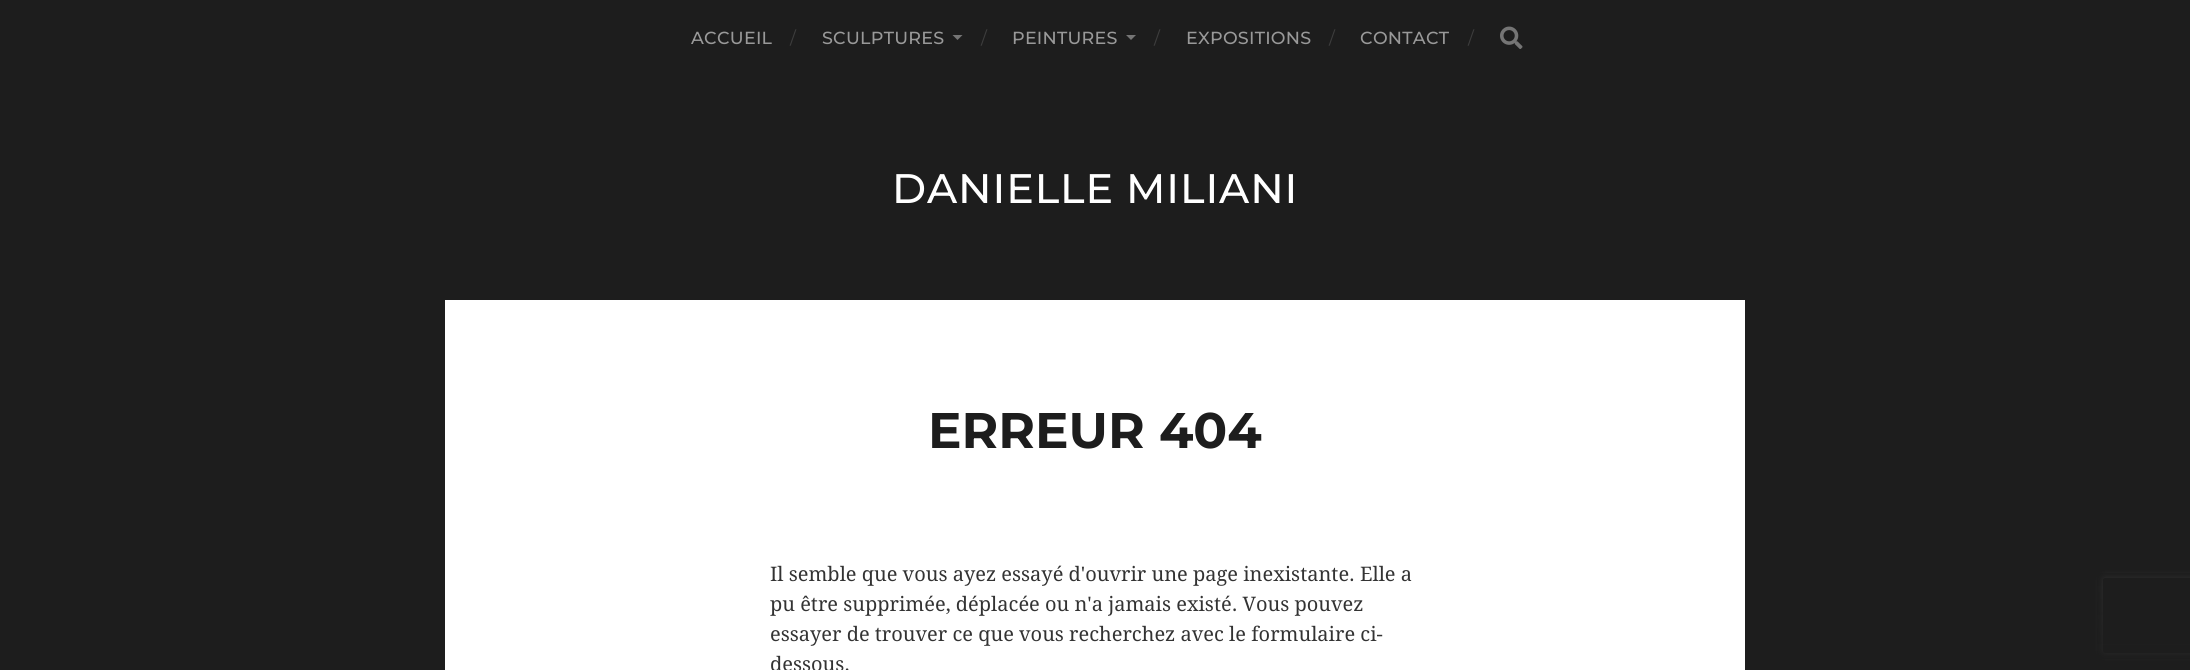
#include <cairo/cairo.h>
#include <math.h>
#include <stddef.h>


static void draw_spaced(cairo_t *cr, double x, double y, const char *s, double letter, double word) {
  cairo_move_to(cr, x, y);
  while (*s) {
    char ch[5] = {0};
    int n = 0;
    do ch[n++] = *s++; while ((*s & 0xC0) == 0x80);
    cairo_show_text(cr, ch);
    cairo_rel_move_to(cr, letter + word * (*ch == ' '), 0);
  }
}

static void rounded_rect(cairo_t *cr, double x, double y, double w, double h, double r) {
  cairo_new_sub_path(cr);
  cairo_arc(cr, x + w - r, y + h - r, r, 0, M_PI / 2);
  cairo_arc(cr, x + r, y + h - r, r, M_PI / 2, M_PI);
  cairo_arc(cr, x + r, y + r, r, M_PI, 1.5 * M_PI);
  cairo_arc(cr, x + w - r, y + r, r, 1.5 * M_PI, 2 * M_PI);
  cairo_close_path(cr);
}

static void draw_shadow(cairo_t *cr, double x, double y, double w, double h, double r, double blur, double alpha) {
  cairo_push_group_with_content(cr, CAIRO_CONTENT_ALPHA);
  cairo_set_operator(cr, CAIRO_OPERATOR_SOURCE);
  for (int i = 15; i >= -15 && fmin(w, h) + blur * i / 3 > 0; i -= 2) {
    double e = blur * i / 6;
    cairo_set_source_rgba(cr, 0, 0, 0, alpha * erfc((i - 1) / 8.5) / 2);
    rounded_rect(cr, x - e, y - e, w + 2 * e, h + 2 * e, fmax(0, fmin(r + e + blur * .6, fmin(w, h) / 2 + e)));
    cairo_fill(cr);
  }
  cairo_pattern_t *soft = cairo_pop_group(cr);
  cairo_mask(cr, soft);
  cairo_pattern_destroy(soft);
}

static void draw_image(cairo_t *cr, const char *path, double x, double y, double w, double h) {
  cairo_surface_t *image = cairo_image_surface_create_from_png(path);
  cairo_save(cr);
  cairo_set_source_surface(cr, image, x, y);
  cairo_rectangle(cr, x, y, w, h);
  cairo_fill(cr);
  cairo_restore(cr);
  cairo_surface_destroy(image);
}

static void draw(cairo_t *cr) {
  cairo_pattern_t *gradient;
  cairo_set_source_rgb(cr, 29 / 255.0, 29 / 255.0, 29 / 255.0);
  cairo_paint(cr);
  cairo_set_source_rgb(cr, 117 / 255.0, 117 / 255.0, 117 / 255.0);
  cairo_new_path(cr);
  cairo_move_to(cr, 952.5, 35);
  cairo_line_to(cr, 962.5, 35);
  cairo_line_to(cr, 957.5, 40);
  cairo_close_path(cr);
  cairo_fill(cr);
  cairo_new_path(cr);
  cairo_move_to(cr, 1126, 35);
  cairo_line_to(cr, 1136, 35);
  cairo_line_to(cr, 1131, 40);
  cairo_close_path(cr);
  cairo_fill(cr);
  draw_image(cr, "images/1.png", 1500, 26, 23, 23);
  cairo_set_source_rgb(cr, 1, 1, 1);
  cairo_rectangle(cr, 445, 300, 1300, 370);
  cairo_fill(cr);
  cairo_save(cr);
  cairo_set_fill_rule(cr, CAIRO_FILL_RULE_EVEN_ODD);
  cairo_new_path(cr);
  cairo_move_to(cr, 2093, 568);
  cairo_line_to(cr, 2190, 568);
  cairo_line_to(cr, 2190, 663);
  cairo_line_to(cr, 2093, 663);
  cairo_close_path(cr);
  cairo_move_to(cr, 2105.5, 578);
  cairo_line_to(cr, 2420.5, 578);
  cairo_curve_to(cr, 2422, 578, 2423, 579, 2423, 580.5);
  cairo_line_to(cr, 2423, 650.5);
  cairo_curve_to(cr, 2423, 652, 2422, 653, 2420.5, 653);
  cairo_line_to(cr, 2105.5, 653);
  cairo_curve_to(cr, 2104, 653, 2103, 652, 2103, 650.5);
  cairo_line_to(cr, 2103, 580.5);
  cairo_curve_to(cr, 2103, 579, 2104, 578, 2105.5, 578);
  cairo_close_path(cr);
  cairo_clip(cr);
  cairo_set_source_rgb(cr, 128 / 255.0, 128 / 255.0, 128 / 255.0);
  draw_shadow(cr, 2103, 578, 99, 75, 2.5, 3, 1);
  cairo_restore(cr);
  gradient = cairo_pattern_create_linear(1095, 75, 1095, 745);
  cairo_pattern_add_color_stop_rgba(gradient, 0, 29 / 255.0, 29 / 255.0, 29 / 255.0, 0.2);
  cairo_pattern_add_color_stop_rgba(gradient, 1, 29 / 255.0, 29 / 255.0, 29 / 255.0, 1);
  cairo_set_source(cr, gradient);
  cairo_pattern_destroy(gradient);
  cairo_rectangle(cr, 2097, 573, 93, 86);
  cairo_fill(cr);
  cairo_select_font_face(cr, "Montserrat Thin", CAIRO_FONT_SLANT_NORMAL, CAIRO_FONT_WEIGHT_NORMAL);
  cairo_set_font_size(cr, 17.5);
  cairo_set_source_rgb(cr, 153 / 255.0, 153 / 255.0, 153 / 255.0);
  draw_spaced(cr, 691, 44, "ACCUEIL", 0.25, 0);
  cairo_select_font_face(cr, "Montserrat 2 Thin", CAIRO_FONT_SLANT_NORMAL, CAIRO_FONT_WEIGHT_NORMAL);
  cairo_set_source_rgb(cr, 61 / 255.0, 61 / 255.0, 61 / 255.0);
  cairo_move_to(cr, 790, 44);
  cairo_show_text(cr, "/");
  cairo_select_font_face(cr, "Montserrat Thin", CAIRO_FONT_SLANT_NORMAL, CAIRO_FONT_WEIGHT_NORMAL);
  cairo_set_source_rgb(cr, 153 / 255.0, 153 / 255.0, 153 / 255.0);
  draw_spaced(cr, 822, 44, "SCULPTURES", 0.25, 0);
  cairo_select_font_face(cr, "Montserrat 2 Thin", CAIRO_FONT_SLANT_NORMAL, CAIRO_FONT_WEIGHT_NORMAL);
  cairo_set_source_rgb(cr, 61 / 255.0, 61 / 255.0, 61 / 255.0);
  cairo_move_to(cr, 981, 44);
  cairo_show_text(cr, "/");
  cairo_select_font_face(cr, "Montserrat Thin", CAIRO_FONT_SLANT_NORMAL, CAIRO_FONT_WEIGHT_NORMAL);
  cairo_set_source_rgb(cr, 153 / 255.0, 153 / 255.0, 153 / 255.0);
  draw_spaced(cr, 1012, 44, "PEINTURES", 0.25, 0);
  cairo_select_font_face(cr, "Montserrat 2 Thin", CAIRO_FONT_SLANT_NORMAL, CAIRO_FONT_WEIGHT_NORMAL);
  cairo_set_source_rgb(cr, 61 / 255.0, 61 / 255.0, 61 / 255.0);
  cairo_move_to(cr, 1154, 44);
  cairo_show_text(cr, "/");
  cairo_select_font_face(cr, "Montserrat Thin", CAIRO_FONT_SLANT_NORMAL, CAIRO_FONT_WEIGHT_NORMAL);
  cairo_set_source_rgb(cr, 153 / 255.0, 153 / 255.0, 153 / 255.0);
  draw_spaced(cr, 1186, 44, "EXPOSITIONS", 0.25, 0);
  cairo_select_font_face(cr, "Montserrat 2 Thin", CAIRO_FONT_SLANT_NORMAL, CAIRO_FONT_WEIGHT_NORMAL);
  cairo_set_source_rgb(cr, 61 / 255.0, 61 / 255.0, 61 / 255.0);
  cairo_move_to(cr, 1329, 44);
  cairo_show_text(cr, "/");
  cairo_select_font_face(cr, "Montserrat Thin", CAIRO_FONT_SLANT_NORMAL, CAIRO_FONT_WEIGHT_NORMAL);
  cairo_set_source_rgb(cr, 153 / 255.0, 153 / 255.0, 153 / 255.0);
  draw_spaced(cr, 1360, 44, "CONTACT", 0.25, 0);
  cairo_select_font_face(cr, "Montserrat 2 Thin", CAIRO_FONT_SLANT_NORMAL, CAIRO_FONT_WEIGHT_NORMAL);
  cairo_set_source_rgb(cr, 61 / 255.0, 61 / 255.0, 61 / 255.0);
  cairo_move_to(cr, 1468, 44);
  cairo_show_text(cr, "/");
  cairo_select_font_face(cr, "Montserrat Thin", CAIRO_FONT_SLANT_NORMAL, CAIRO_FONT_WEIGHT_NORMAL);
  cairo_set_font_size(cr, 41.25);
  cairo_set_source_rgb(cr, 1, 1, 1);
  draw_spaced(cr, 892, 203, "DANIELLE MILIANI", 0.9, 0);
  cairo_select_font_face(cr, "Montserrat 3 Thin", CAIRO_FONT_SLANT_NORMAL, CAIRO_FONT_WEIGHT_NORMAL);
  cairo_set_font_size(cr, 50);
  cairo_set_source_rgb(cr, 29 / 255.0, 29 / 255.0, 29 / 255.0);
  cairo_move_to(cr, 928, 448);
  cairo_show_text(cr, "ERREUR 404");
  cairo_select_font_face(cr, "Droid Serif", CAIRO_FONT_SLANT_NORMAL, CAIRO_FONT_WEIGHT_NORMAL);
  cairo_set_font_size(cr, 20);
  cairo_set_source_rgb(cr, 51 / 255.0, 51 / 255.0, 51 / 255.0);
  cairo_move_to(cr, 770, 581);
  cairo_show_text(cr, "Il semble que vous ayez essayé d'ouvrir une page inexistante. Elle a");
  cairo_move_to(cr, 770, 611);
  cairo_show_text(cr, "pu être supprimée, déplacée ou n'a jamais existé. Vous pouvez");
  cairo_move_to(cr, 770, 641);
  cairo_show_text(cr, "essayer de trouver ce que vous recherchez avec le formulaire ci-");
  cairo_move_to(cr, 770, 671);
  cairo_show_text(cr, "dessous.");
}

int main(void) {
  cairo_surface_t *surface = cairo_image_surface_create(CAIRO_FORMAT_RGB24, 2190, 670);
  cairo_t *cr = cairo_create(surface);
  cairo_font_options_t *options = cairo_font_options_create();
  cairo_font_options_set_hint_metrics(options, CAIRO_HINT_METRICS_OFF);
  cairo_font_options_set_hint_style(options, CAIRO_HINT_STYLE_NONE);
  cairo_set_font_options(cr, options);
  cairo_set_miter_limit(cr, 4);
  draw(cr);
  cairo_surface_write_to_png(surface, "out.png");
  cairo_font_options_destroy(options);
  cairo_destroy(cr);
  cairo_surface_destroy(surface);
  return 0;
}
